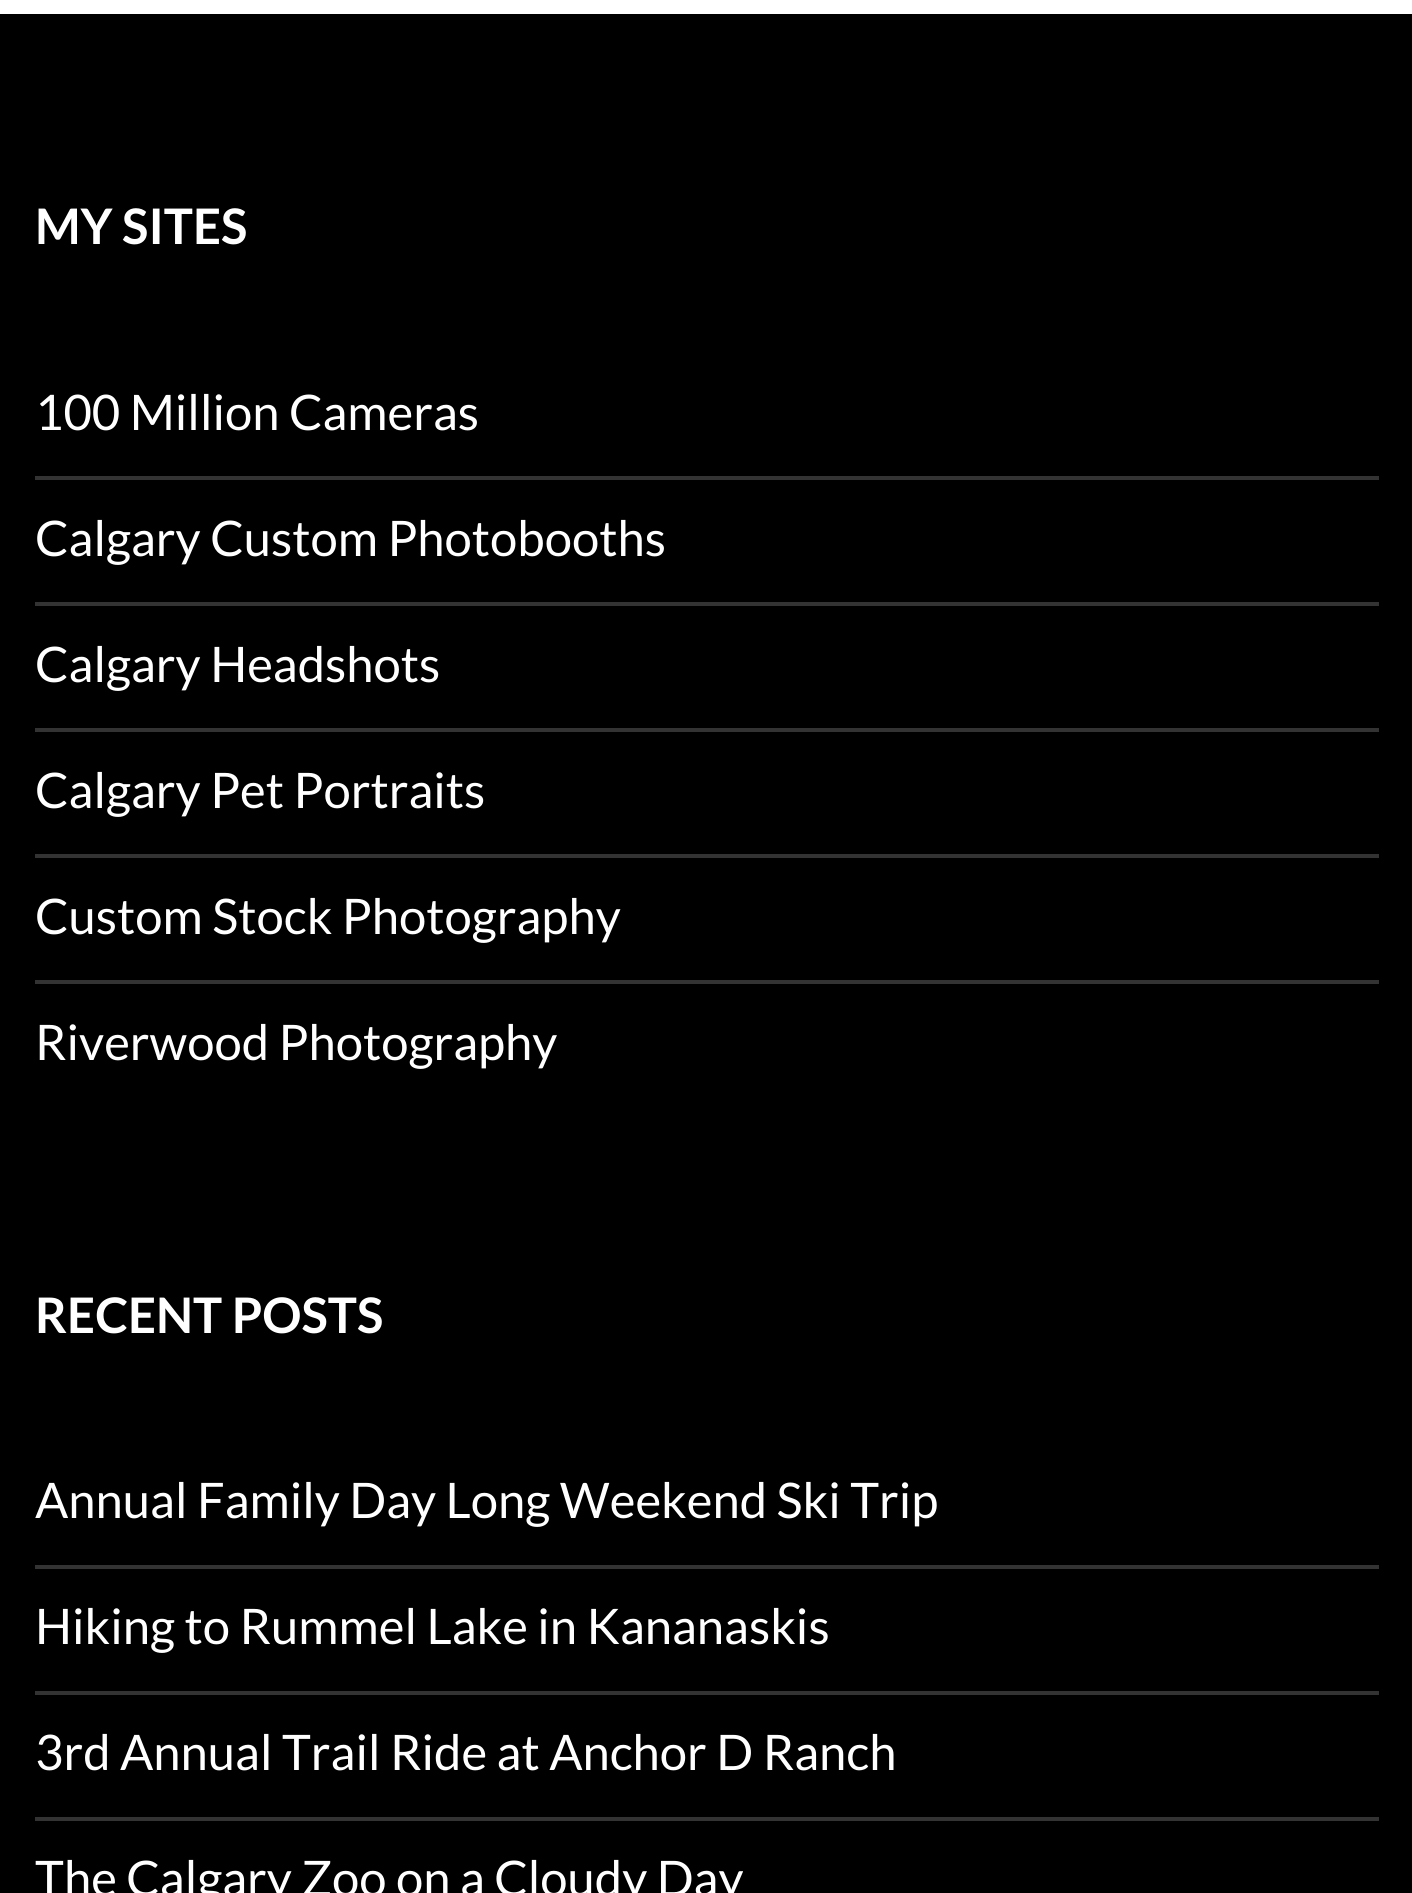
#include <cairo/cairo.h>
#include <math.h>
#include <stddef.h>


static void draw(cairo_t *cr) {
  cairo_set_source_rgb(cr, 1, 1, 1);
  cairo_paint(cr);
  cairo_set_source_rgb(cr, 0, 0, 0);
  cairo_rectangle(cr, 0, 14, 1412, 1879);
  cairo_fill(cr);
  cairo_set_source_rgb(cr, 51 / 255.0, 51 / 255.0, 51 / 255.0);
  cairo_rectangle(cr, 35, 476, 1344, 4);
  cairo_fill(cr);
  cairo_rectangle(cr, 35, 602, 1344, 4);
  cairo_fill(cr);
  cairo_rectangle(cr, 35, 728, 1344, 4);
  cairo_fill(cr);
  cairo_rectangle(cr, 35, 854, 1344, 4);
  cairo_fill(cr);
  cairo_rectangle(cr, 35, 980, 1344, 4);
  cairo_fill(cr);
  cairo_rectangle(cr, 35, 1565, 1344, 4);
  cairo_fill(cr);
  cairo_rectangle(cr, 35, 1691, 1344, 4);
  cairo_fill(cr);
  cairo_rectangle(cr, 35, 1817, 1344, 4);
  cairo_fill(cr);
  cairo_select_font_face(cr, "Lato", CAIRO_FONT_SLANT_NORMAL, CAIRO_FONT_WEIGHT_BOLD);
  cairo_set_font_size(cr, 49);
  cairo_set_source_rgb(cr, 1, 1, 1);
  cairo_move_to(cr, 35, 244);
  cairo_show_text(cr, "MY SITES");
  cairo_select_font_face(cr, "Lato", CAIRO_FONT_SLANT_NORMAL, CAIRO_FONT_WEIGHT_NORMAL);
  cairo_move_to(cr, 35, 430);
  cairo_show_text(cr, "100 Million Cameras");
  cairo_move_to(cr, 35, 556);
  cairo_show_text(cr, "Calgary Custom Photobooths");
  cairo_move_to(cr, 35, 682);
  cairo_show_text(cr, "Calgary Headshots");
  cairo_move_to(cr, 35, 808);
  cairo_show_text(cr, "Calgary Pet Portraits");
  cairo_move_to(cr, 35, 934);
  cairo_show_text(cr, "Custom Stock Photography");
  cairo_move_to(cr, 35, 1060);
  cairo_show_text(cr, "Riverwood Photography");
  cairo_select_font_face(cr, "Lato", CAIRO_FONT_SLANT_NORMAL, CAIRO_FONT_WEIGHT_BOLD);
  cairo_move_to(cr, 35, 1333);
  cairo_show_text(cr, "RECENT POSTS");
  cairo_select_font_face(cr, "Lato", CAIRO_FONT_SLANT_NORMAL, CAIRO_FONT_WEIGHT_NORMAL);
  cairo_move_to(cr, 35, 1518);
  cairo_show_text(cr, "Annual Family Day Long Weekend Ski Trip");
  cairo_move_to(cr, 35, 1644);
  cairo_show_text(cr, "Hiking to Rummel Lake in Kananaskis");
  cairo_move_to(cr, 35, 1770);
  cairo_show_text(cr, "3rd Annual Trail Ride at Anchor D Ranch");
  cairo_move_to(cr, 35, 1896);
  cairo_show_text(cr, "The Calgary Zoo on a Cloudy Day");
}

int main(void) {
  cairo_surface_t *surface = cairo_image_surface_create(CAIRO_FORMAT_RGB24, 1412, 1893);
  cairo_t *cr = cairo_create(surface);
  cairo_font_options_t *options = cairo_font_options_create();
  cairo_font_options_set_hint_metrics(options, CAIRO_HINT_METRICS_OFF);
  cairo_font_options_set_hint_style(options, CAIRO_HINT_STYLE_NONE);
  cairo_set_font_options(cr, options);
  cairo_set_miter_limit(cr, 4);
  draw(cr);
  cairo_surface_write_to_png(surface, "out.png");
  cairo_font_options_destroy(options);
  cairo_destroy(cr);
  cairo_surface_destroy(surface);
  return 0;
}
